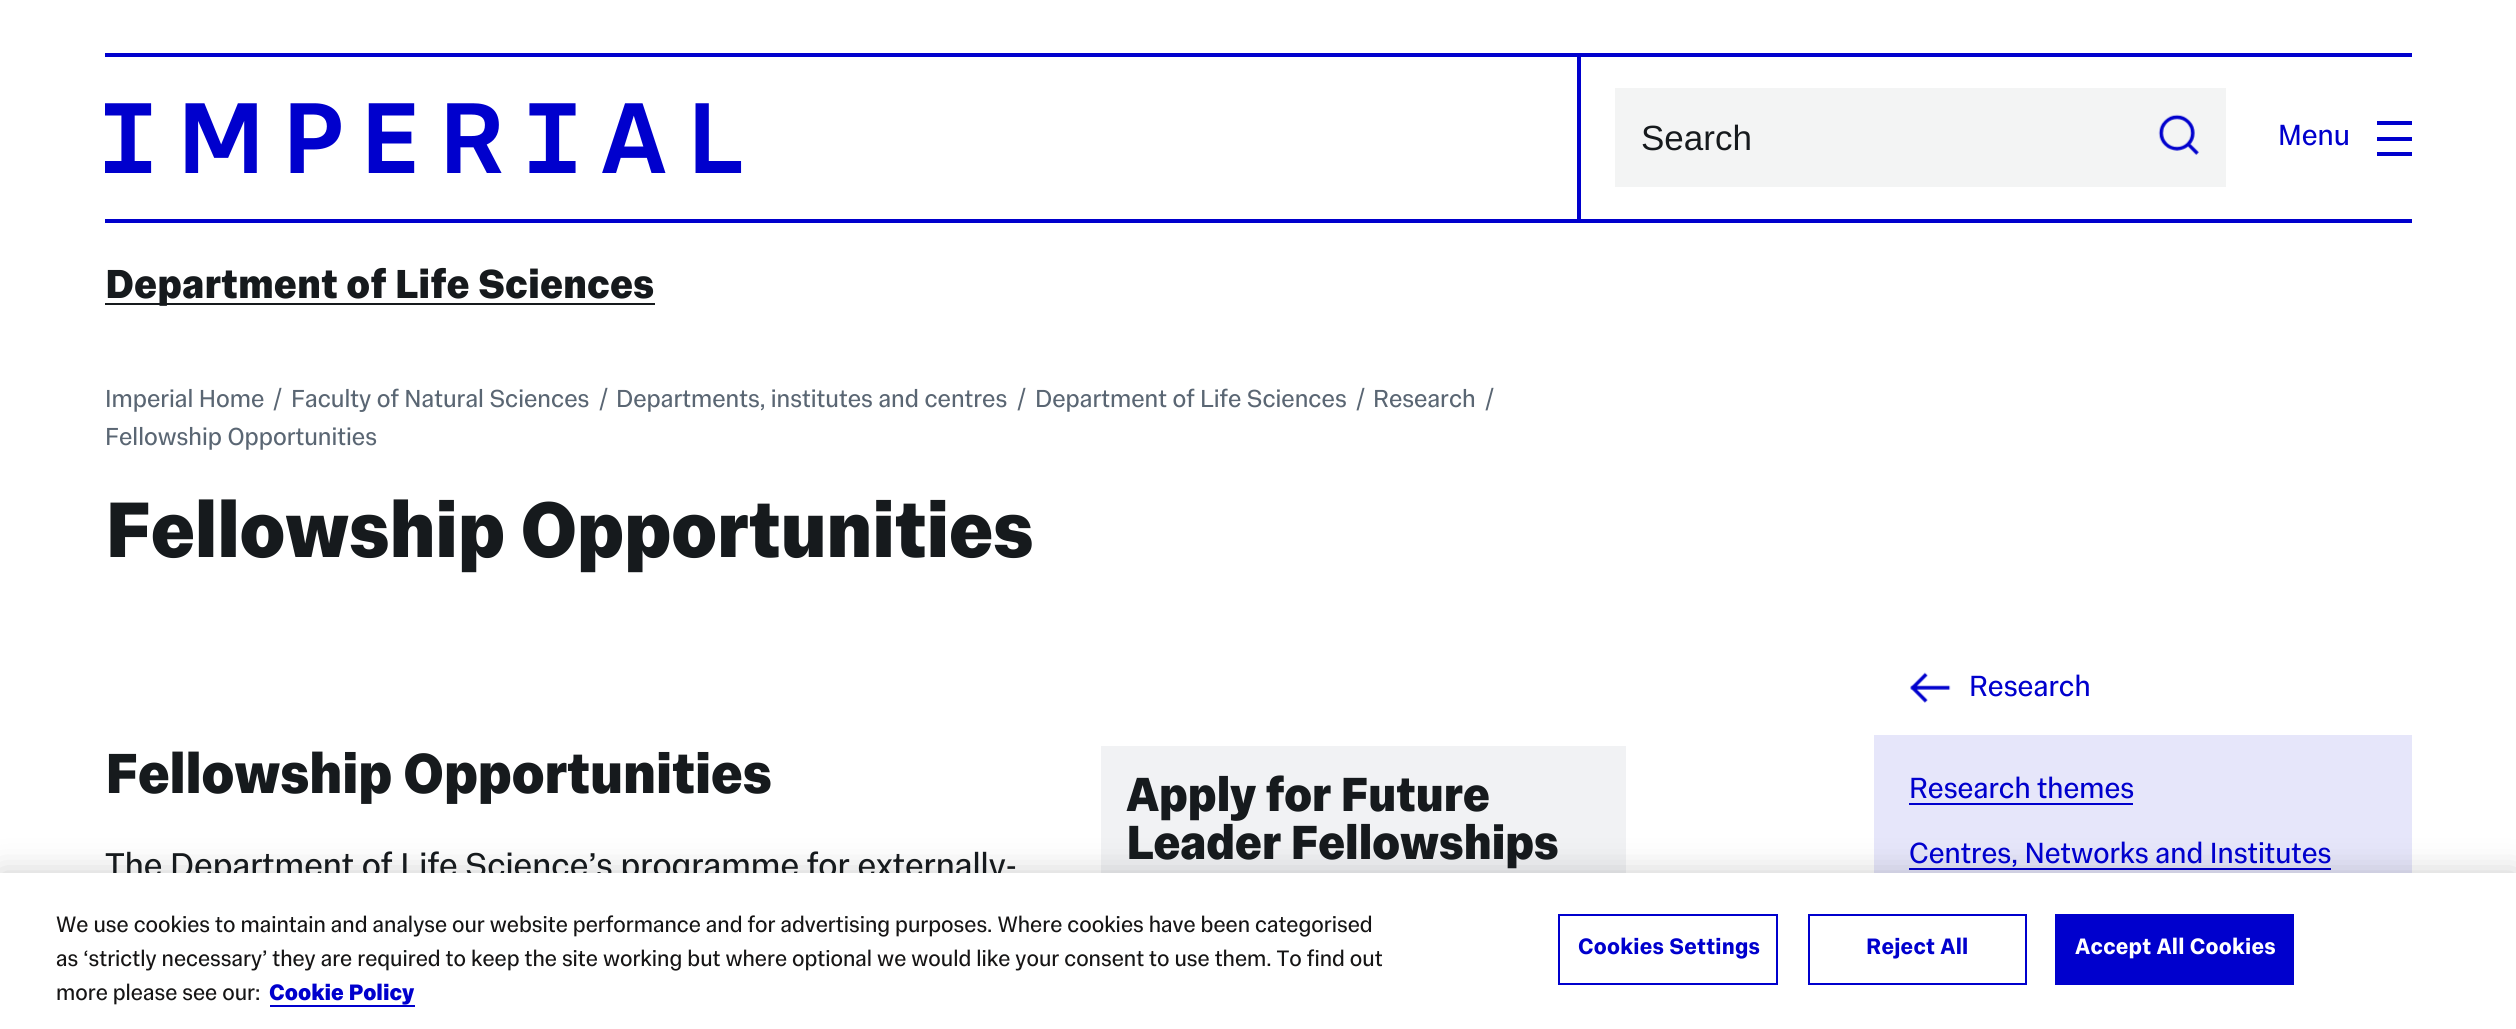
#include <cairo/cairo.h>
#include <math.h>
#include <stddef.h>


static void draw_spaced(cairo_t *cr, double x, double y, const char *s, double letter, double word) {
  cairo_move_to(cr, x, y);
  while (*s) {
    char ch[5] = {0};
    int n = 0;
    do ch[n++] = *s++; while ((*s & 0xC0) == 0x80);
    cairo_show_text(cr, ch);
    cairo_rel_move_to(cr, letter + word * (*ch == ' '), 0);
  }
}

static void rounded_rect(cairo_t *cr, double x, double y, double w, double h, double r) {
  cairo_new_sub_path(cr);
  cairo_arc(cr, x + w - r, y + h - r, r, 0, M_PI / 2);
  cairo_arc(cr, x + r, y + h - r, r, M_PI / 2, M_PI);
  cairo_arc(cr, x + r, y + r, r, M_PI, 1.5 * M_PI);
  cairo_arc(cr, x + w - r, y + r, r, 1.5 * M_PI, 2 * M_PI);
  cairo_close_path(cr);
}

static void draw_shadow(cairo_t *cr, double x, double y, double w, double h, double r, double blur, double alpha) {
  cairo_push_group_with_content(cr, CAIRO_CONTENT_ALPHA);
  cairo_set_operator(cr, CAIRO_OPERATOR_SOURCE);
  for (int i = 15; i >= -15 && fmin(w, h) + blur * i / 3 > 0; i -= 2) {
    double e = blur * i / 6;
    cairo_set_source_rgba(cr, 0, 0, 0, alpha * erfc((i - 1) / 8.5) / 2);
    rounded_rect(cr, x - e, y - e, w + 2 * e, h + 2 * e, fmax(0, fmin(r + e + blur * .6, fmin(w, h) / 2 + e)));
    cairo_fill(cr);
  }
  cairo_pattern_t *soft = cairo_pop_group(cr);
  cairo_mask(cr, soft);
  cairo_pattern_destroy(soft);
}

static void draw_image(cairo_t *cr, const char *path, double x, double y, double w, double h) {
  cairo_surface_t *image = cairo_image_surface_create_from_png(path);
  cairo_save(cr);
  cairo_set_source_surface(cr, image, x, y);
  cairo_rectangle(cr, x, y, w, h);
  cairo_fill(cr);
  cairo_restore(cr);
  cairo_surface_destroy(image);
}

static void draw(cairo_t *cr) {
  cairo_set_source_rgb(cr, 1, 1, 1);
  cairo_paint(cr);
  cairo_set_source_rgb(cr, 0, 0, 205 / 255.0);
  cairo_rectangle(cr, 105, 53, 2307, 4);
  cairo_fill(cr);
  draw_image(cr, "images/1.png", 105, 103, 637, 70);
  cairo_rectangle(cr, 1577, 53, 4, 169);
  cairo_fill(cr);
  cairo_set_source_rgb(cr, 243 / 255.0, 244 / 255.0, 244 / 255.0);
  cairo_rectangle(cr, 1615, 88, 611, 99);
  cairo_fill(cr);
  draw_image(cr, "images/2.png", 2158, 114, 41, 41);
  cairo_set_source_rgb(cr, 0, 0, 205 / 255.0);
  cairo_rectangle(cr, 2377, 121, 35, 4);
  cairo_fill(cr);
  cairo_rectangle(cr, 2377, 137, 35, 4);
  cairo_fill(cr);
  cairo_rectangle(cr, 2377, 152, 35, 4);
  cairo_fill(cr);
  cairo_rectangle(cr, 105, 219, 2307, 4);
  cairo_fill(cr);
  cairo_set_source_rgb(cr, 22 / 255.0, 26 / 255.0, 29 / 255.0);
  cairo_rectangle(cr, 105, 303, 550, 2);
  cairo_fill(cr);
  cairo_set_source_rgb(cr, 241 / 255.0, 242 / 255.0, 244 / 255.0);
  cairo_rectangle(cr, 1101, 746, 525, 127);
  cairo_fill(cr);
  draw_image(cr, "images/3.png", 1910, 672, 41, 31);
  cairo_set_source_rgb(cr, 230 / 255.0, 230 / 255.0, 250 / 255.0);
  cairo_rectangle(cr, 1874, 735, 538, 138);
  cairo_fill(cr);
  cairo_set_source_rgb(cr, 0, 0, 205 / 255.0);
  cairo_rectangle(cr, 1909, 803, 224, 2);
  cairo_fill(cr);
  cairo_rectangle(cr, 1909, 868, 422, 2);
  cairo_fill(cr);
  cairo_set_source_rgb(cr, 0, 0, 0);
  draw_shadow(cr, 0, 873, 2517, 156, 0, 16, 0.2);
  cairo_select_font_face(cr, "Liberation Sans", CAIRO_FONT_SLANT_NORMAL, CAIRO_FONT_WEIGHT_NORMAL);
  cairo_set_font_size(cr, 35);
  cairo_set_source_rgb(cr, 22 / 255.0, 26 / 255.0, 29 / 255.0);
  cairo_move_to(cr, 1641, 150);
  cairo_show_text(cr, "Search");
  cairo_select_font_face(cr, "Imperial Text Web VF", CAIRO_FONT_SLANT_NORMAL, CAIRO_FONT_WEIGHT_NORMAL);
  cairo_set_font_size(cr, 29.7);
  cairo_set_source_rgb(cr, 0, 0, 205 / 255.0);
  cairo_move_to(cr, 2278, 145);
  cairo_show_text(cr, "Menu");
  cairo_select_font_face(cr, "Imperial Text Web VF", CAIRO_FONT_SLANT_NORMAL, CAIRO_FONT_WEIGHT_BOLD);
  cairo_set_font_size(cr, 41.25);
  cairo_set_source_rgb(cr, 22 / 255.0, 26 / 255.0, 29 / 255.0);
  cairo_move_to(cr, 105, 298);
  cairo_show_text(cr, "Department of Life Sciences");
  cairo_select_font_face(cr, "Imperial Text Web VF", CAIRO_FONT_SLANT_NORMAL, CAIRO_FONT_WEIGHT_NORMAL);
  cairo_set_font_size(cr, 25.1);
  cairo_set_source_rgb(cr, 90 / 255.0, 102 / 255.0, 115 / 255.0);
  cairo_move_to(cr, 105, 407);
  cairo_show_text(cr, "Imperial Home");
  cairo_move_to(cr, 273, 407);
  cairo_show_text(cr, "/");
  cairo_move_to(cr, 291, 407);
  cairo_show_text(cr, "Faculty of Natural Sciences");
  cairo_move_to(cr, 599, 407);
  cairo_show_text(cr, "/");
  cairo_move_to(cr, 616, 407);
  cairo_show_text(cr, "Departments, institutes and centres");
  cairo_move_to(cr, 1017, 407);
  cairo_show_text(cr, "/");
  cairo_move_to(cr, 1035, 407);
  cairo_show_text(cr, "Department of Life Sciences");
  cairo_move_to(cr, 1356, 407);
  cairo_show_text(cr, "/");
  cairo_move_to(cr, 1373, 407);
  cairo_show_text(cr, "Research");
  cairo_move_to(cr, 1485, 407);
  cairo_show_text(cr, "/");
  cairo_move_to(cr, 105, 445);
  cairo_show_text(cr, "Fellowship Opportunities");
  cairo_select_font_face(cr, "Imperial Text Web VF", CAIRO_FONT_SLANT_NORMAL, CAIRO_FONT_WEIGHT_BOLD);
  cairo_set_font_size(cr, 80);
  cairo_set_source_rgb(cr, 22 / 255.0, 26 / 255.0, 29 / 255.0);
  draw_spaced(cr, 105, 557, "Fellowship Opportunities", -0.8, 0);
  cairo_set_font_size(cr, 57.5);
  draw_spaced(cr, 105, 793, "Fellowship Opportunities", -0.6, 0);
  cairo_select_font_face(cr, "Imperial Text Web VF", CAIRO_FONT_SLANT_NORMAL, CAIRO_FONT_WEIGHT_NORMAL);
  cairo_set_font_size(cr, 35);
  cairo_move_to(cr, 105, 877);
  cairo_show_text(cr, "The Department of Life Science’s programme for externally-");
  cairo_select_font_face(cr, "Imperial Text Web VF", CAIRO_FONT_SLANT_NORMAL, CAIRO_FONT_WEIGHT_BOLD);
  cairo_set_font_size(cr, 48.75);
  draw_spaced(cr, 1126, 811, "Apply for Future", -0.5, 0);
  draw_spaced(cr, 1126, 859, "Leader Fellowships", -0.5, 0);
  cairo_select_font_face(cr, "Imperial Text Web VF", CAIRO_FONT_SLANT_NORMAL, CAIRO_FONT_WEIGHT_NORMAL);
  cairo_set_font_size(cr, 29.7);
  cairo_set_source_rgb(cr, 0, 0, 205 / 255.0);
  cairo_move_to(cr, 1969, 696);
  cairo_show_text(cr, "Research");
  cairo_move_to(cr, 1909, 798);
  cairo_show_text(cr, "Research themes");
  cairo_move_to(cr, 1909, 863);
  cairo_show_text(cr, "Centres, Networks and Institutes");
  cairo_set_source_rgb(cr, 1, 1, 1);
  cairo_rectangle(cr, 0, 873, 2516, 156);
  cairo_fill(cr);
  cairo_set_font_size(cr, 22.75);
  cairo_set_source_rgb(cr, 22 / 255.0, 21 / 255.0, 21 / 255.0);
  cairo_move_to(cr, 56, 932);
  cairo_show_text(cr, "We use cookies to maintain and analyse our website performance and for advertising purposes. Where cookies have been categorised");
  cairo_move_to(cr, 56, 966);
  cairo_show_text(cr, "as ‘strictly necessary’ they are required to keep the site working but where optional we would like your consent to use them. To find out");
  cairo_move_to(cr, 56, 1000);
  cairo_show_text(cr, "more please see our:");
  cairo_select_font_face(cr, "Imperial Text Web VF", CAIRO_FONT_SLANT_NORMAL, CAIRO_FONT_WEIGHT_BOLD);
  cairo_set_source_rgb(cr, 0, 0, 205 / 255.0);
  cairo_move_to(cr, 269, 1000);
  cairo_show_text(cr, "Cookie Policy");
  cairo_rectangle(cr, 270, 1005, 145, 2);
  cairo_fill(cr);
  cairo_rectangle(cr, 1559, 915, 218, 69);
  cairo_stroke(cr);
  cairo_select_font_face(cr, "Imperial Text Web VF SemiBold", CAIRO_FONT_SLANT_NORMAL, CAIRO_FONT_WEIGHT_NORMAL);
  draw_spaced(cr, 1578, 954, "Cookies Settings", 0.25, 0);
  cairo_rectangle(cr, 1809, 915, 217, 69);
  cairo_stroke(cr);
  draw_spaced(cr, 1866, 954, "Reject All", 0.25, 0);
  cairo_rectangle(cr, 2055, 914, 239, 71);
  cairo_fill(cr);
  cairo_set_source_rgb(cr, 1, 1, 1);
  draw_spaced(cr, 2075, 954, "Accept All Cookies", 0.25, 0);
}

int main(void) {
  cairo_surface_t *surface = cairo_image_surface_create(CAIRO_FORMAT_RGB24, 2516, 1029);
  cairo_t *cr = cairo_create(surface);
  cairo_font_options_t *options = cairo_font_options_create();
  cairo_font_options_set_hint_metrics(options, CAIRO_HINT_METRICS_OFF);
  cairo_font_options_set_hint_style(options, CAIRO_HINT_STYLE_NONE);
  cairo_set_font_options(cr, options);
  cairo_set_miter_limit(cr, 4);
  draw(cr);
  cairo_surface_write_to_png(surface, "out.png");
  cairo_font_options_destroy(options);
  cairo_destroy(cr);
  cairo_surface_destroy(surface);
  return 0;
}
